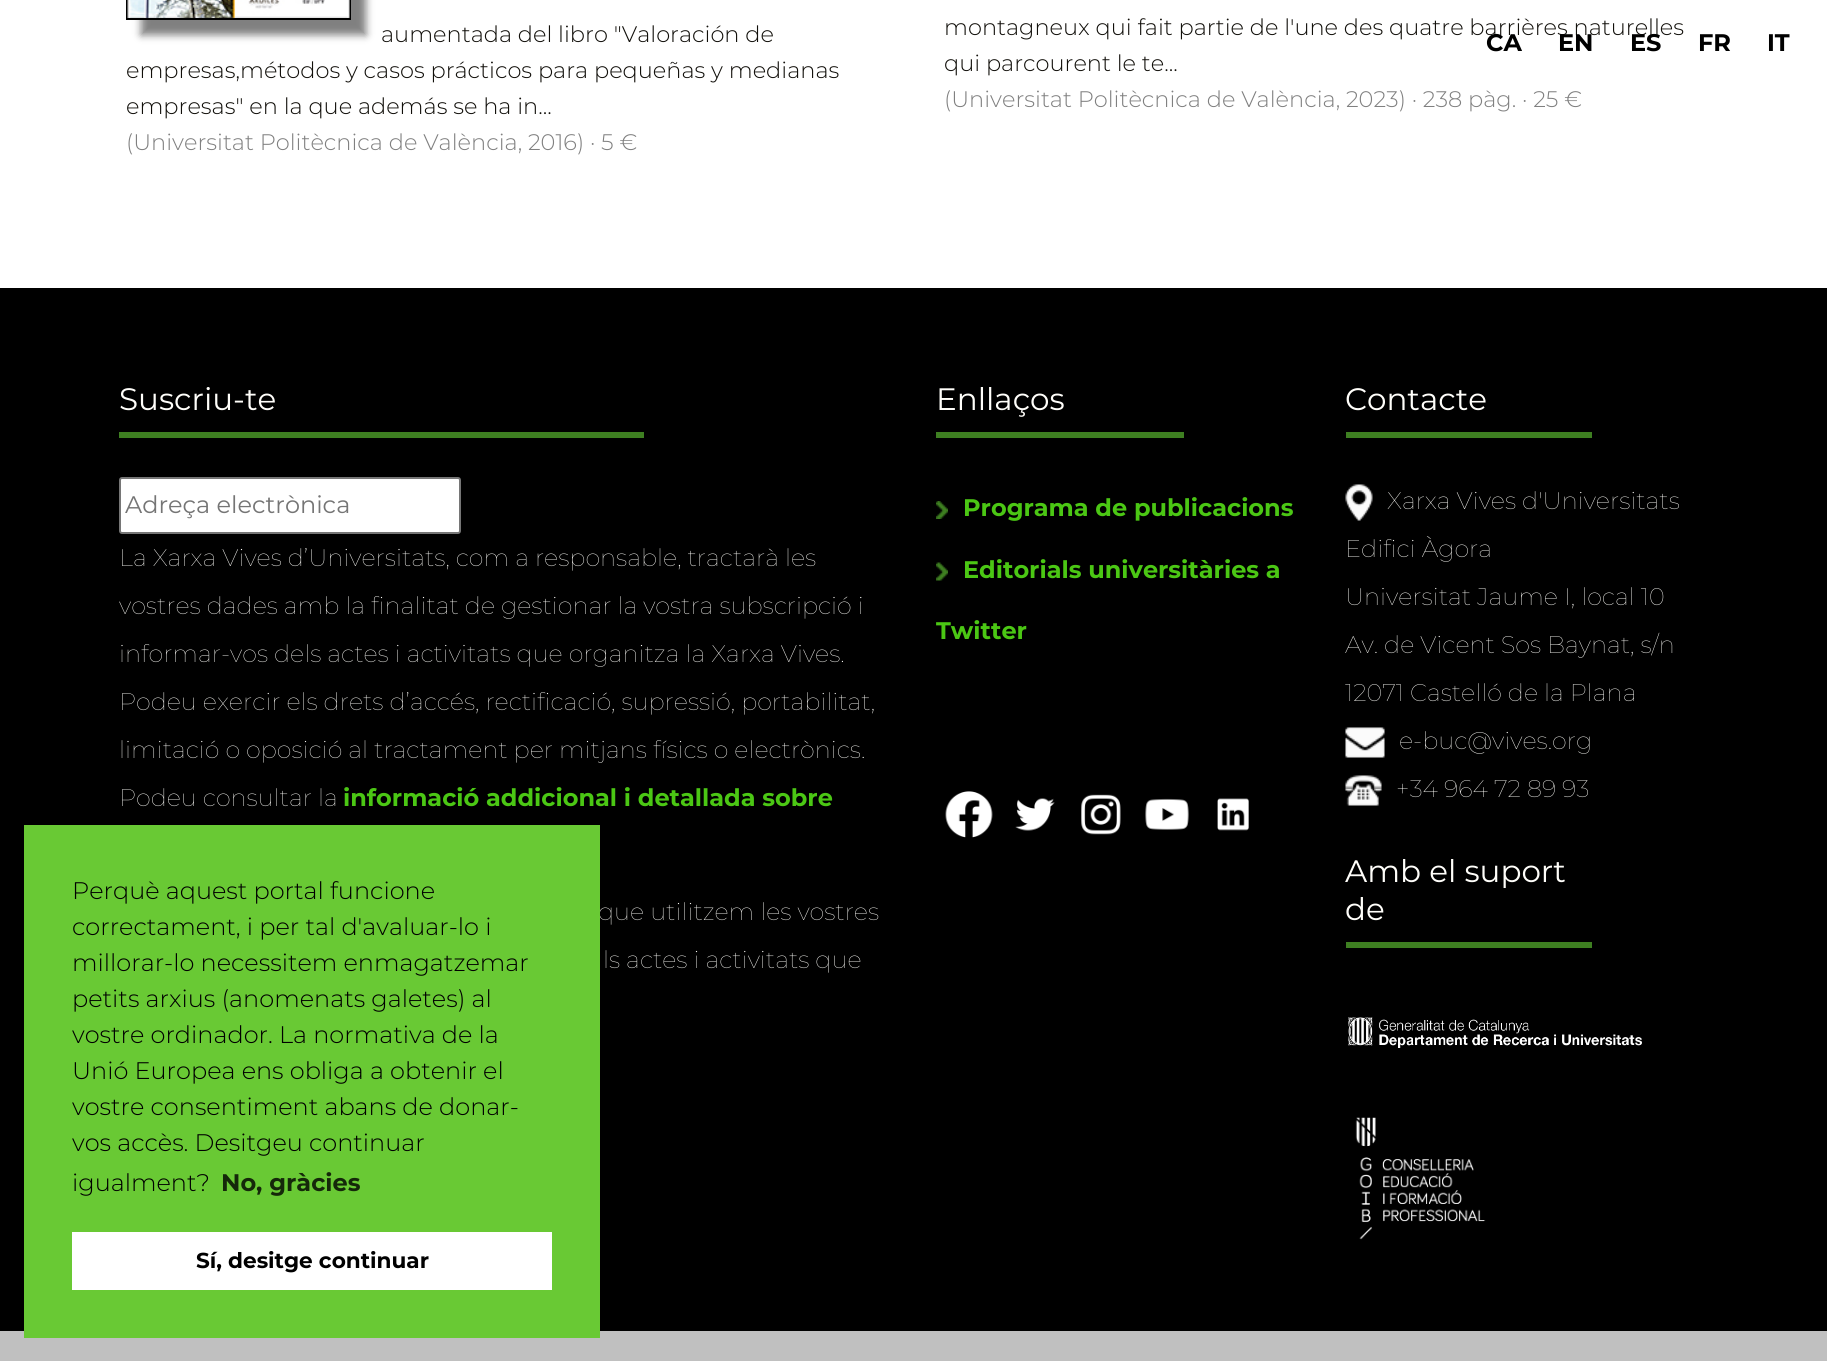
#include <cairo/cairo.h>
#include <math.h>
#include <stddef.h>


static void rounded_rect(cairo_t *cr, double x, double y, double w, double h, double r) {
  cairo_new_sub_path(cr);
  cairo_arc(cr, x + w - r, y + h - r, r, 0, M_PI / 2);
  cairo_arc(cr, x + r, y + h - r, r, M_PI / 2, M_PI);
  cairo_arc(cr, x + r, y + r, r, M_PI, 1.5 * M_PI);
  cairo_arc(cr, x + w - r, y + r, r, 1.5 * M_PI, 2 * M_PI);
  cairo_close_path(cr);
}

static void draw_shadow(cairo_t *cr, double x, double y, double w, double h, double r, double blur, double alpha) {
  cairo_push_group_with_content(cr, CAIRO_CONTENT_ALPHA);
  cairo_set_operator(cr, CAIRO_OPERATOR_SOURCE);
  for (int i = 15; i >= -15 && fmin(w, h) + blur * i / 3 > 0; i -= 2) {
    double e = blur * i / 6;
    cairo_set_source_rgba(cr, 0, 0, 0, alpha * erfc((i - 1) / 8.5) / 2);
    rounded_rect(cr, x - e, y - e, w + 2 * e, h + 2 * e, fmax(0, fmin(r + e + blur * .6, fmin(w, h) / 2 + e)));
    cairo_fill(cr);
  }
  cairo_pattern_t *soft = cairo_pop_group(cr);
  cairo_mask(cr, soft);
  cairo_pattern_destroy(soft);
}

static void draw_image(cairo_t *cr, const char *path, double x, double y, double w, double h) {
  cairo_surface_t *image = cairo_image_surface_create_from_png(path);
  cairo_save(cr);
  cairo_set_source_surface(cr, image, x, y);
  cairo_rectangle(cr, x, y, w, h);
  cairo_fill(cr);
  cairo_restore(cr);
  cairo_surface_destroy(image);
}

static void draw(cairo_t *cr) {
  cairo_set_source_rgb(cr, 1, 1, 1);
  cairo_paint(cr);
  cairo_set_source_rgb(cr, 128 / 255.0, 128 / 255.0, 128 / 255.0);
  draw_shadow(cr, 141, -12, 225, 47, 0, 4, 1);
  cairo_rectangle(cr, 127, -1, 223, 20);
  cairo_set_source_rgb(cr, 0, 0, 0);
  cairo_stroke(cr);
  draw_image(cr, "images/1.png", 127, 0, 223, 18);
  cairo_rectangle(cr, 0, 288, 1827, 1043);
  cairo_fill(cr);
  cairo_set_source_rgb(cr, 62 / 255.0, 127 / 255.0, 33 / 255.0);
  cairo_rectangle(cr, 119, 432, 525, 6);
  cairo_fill(cr);
  cairo_set_source_rgb(cr, 1, 1, 1);
  rounded_rect(cr, 120, 478, 340, 55, 2);
  cairo_fill_preserve(cr);
  cairo_set_source_rgb(cr, 118 / 255.0, 118 / 255.0, 118 / 255.0);
  cairo_stroke(cr);
  cairo_set_source_rgb(cr, 62 / 255.0, 127 / 255.0, 33 / 255.0);
  cairo_rectangle(cr, 936, 432, 248, 6);
  cairo_fill(cr);
  draw_image(cr, "images/2.png", 936, 501, 12, 18);
  draw_image(cr, "images/3.png", 936, 562, 12, 19);
  draw_image(cr, "images/4.png", 945, 791, 48, 47);
  draw_image(cr, "images/5.png", 1015, 798, 40, 33);
  draw_image(cr, "images/6.png", 1081, 794, 40, 41);
  draw_image(cr, "images/7.png", 1145, 798, 44, 32);
  draw_image(cr, "images/8.png", 1217, 798, 32, 33);
  cairo_rectangle(cr, 1346, 432, 246, 6);
  cairo_fill(cr);
  draw_image(cr, "images/9.png", 1345, 484, 28, 37);
  draw_image(cr, "images/10.png", 1345, 727, 40, 31);
  draw_image(cr, "images/11.png", 1345, 775, 37, 31);
  cairo_rectangle(cr, 1346, 942, 246, 6);
  cairo_fill(cr);
  draw_image(cr, "images/12.png", 1348, 1017, 294, 31);
  draw_image(cr, "images/13.png", 1355, 1117, 131, 123);
  cairo_set_source_rgb(cr, 192 / 255.0, 192 / 255.0, 192 / 255.0);
  cairo_rectangle(cr, 0, 1331, 1827, 30);
  cairo_fill(cr);
  cairo_select_font_face(cr, "Montserrat Light", CAIRO_FONT_SLANT_NORMAL, CAIRO_FONT_WEIGHT_NORMAL);
  cairo_set_font_size(cr, 22.5);
  cairo_set_source_rgb(cr, 17 / 255.0, 15 / 255.0, 10 / 255.0);
  cairo_move_to(cr, 381, 42);
  cairo_show_text(cr, "aumentada del libro \"Valoración de");
  cairo_move_to(cr, 126, 78);
  cairo_show_text(cr, "empresas,métodos y casos prácticos para pequeñas y medianas");
  cairo_move_to(cr, 126, 114);
  cairo_show_text(cr, "empresas\" en la que además se ha in...");
  cairo_set_source_rgb(cr, 128 / 255.0, 128 / 255.0, 128 / 255.0);
  cairo_move_to(cr, 126, 150);
  cairo_show_text(cr, "(Universitat Politècnica de València, 2016) · 5 €");
  cairo_set_source_rgb(cr, 17 / 255.0, 15 / 255.0, 10 / 255.0);
  cairo_move_to(cr, 944, 35);
  cairo_show_text(cr, "montagneux qui fait partie de l'une des quatre barrières naturelles");
  cairo_move_to(cr, 944, 71);
  cairo_show_text(cr, "qui parcourent le te...");
  cairo_set_source_rgb(cr, 128 / 255.0, 128 / 255.0, 128 / 255.0);
  cairo_move_to(cr, 944, 107);
  cairo_show_text(cr, "(Universitat Politècnica de València, 2023) · 238 pàg. · 25 €");
  cairo_select_font_face(cr, "Montserrat", CAIRO_FONT_SLANT_NORMAL, CAIRO_FONT_WEIGHT_BOLD);
  cairo_set_font_size(cr, 24);
  cairo_set_source_rgb(cr, 0, 0, 0);
  cairo_move_to(cr, 1486, 51);
  cairo_show_text(cr, "CA");
  cairo_move_to(cr, 1558, 51);
  cairo_show_text(cr, "EN");
  cairo_move_to(cr, 1630, 51);
  cairo_show_text(cr, "ES");
  cairo_move_to(cr, 1698, 51);
  cairo_show_text(cr, "FR");
  cairo_move_to(cr, 1767, 51);
  cairo_show_text(cr, "IT");
  cairo_select_font_face(cr, "Montserrat", CAIRO_FONT_SLANT_NORMAL, CAIRO_FONT_WEIGHT_NORMAL);
  cairo_set_font_size(cr, 31);
  cairo_set_source_rgb(cr, 1, 254 / 255.0, 250 / 255.0);
  cairo_move_to(cr, 119, 410);
  cairo_show_text(cr, "Suscriu-te");
  cairo_set_font_size(cr, 24);
  cairo_set_source_rgb(cr, 117 / 255.0, 117 / 255.0, 117 / 255.0);
  cairo_move_to(cr, 125, 513);
  cairo_show_text(cr, "Adreça electrònica");
  cairo_select_font_face(cr, "Montserrat Thin", CAIRO_FONT_SLANT_NORMAL, CAIRO_FONT_WEIGHT_NORMAL);
  cairo_set_source_rgb(cr, 1, 254 / 255.0, 250 / 255.0);
  cairo_move_to(cr, 119, 566);
  cairo_show_text(cr, "La Xarxa Vives d’Universitats, com a responsable, tractarà les");
  cairo_move_to(cr, 119, 614);
  cairo_show_text(cr, "vostres dades amb la finalitat de gestionar la vostra subscripció i");
  cairo_move_to(cr, 119, 662);
  cairo_show_text(cr, "informar-vos dels actes i activitats que organitza la Xarxa Vives.");
  cairo_move_to(cr, 119, 710);
  cairo_show_text(cr, "Podeu exercir els drets d’accés, rectificació, supressió, portabilitat,");
  cairo_move_to(cr, 119, 758);
  cairo_show_text(cr, "limitació o oposició al tractament per mitjans físics o electrònics.");
  cairo_move_to(cr, 119, 806);
  cairo_show_text(cr, "Podeu consultar la");
  cairo_select_font_face(cr, "Montserrat", CAIRO_FONT_SLANT_NORMAL, CAIRO_FONT_WEIGHT_BOLD);
  cairo_set_source_rgb(cr, 75 / 255.0, 199 / 255.0, 20 / 255.0);
  cairo_move_to(cr, 343, 806);
  cairo_show_text(cr, "informació addicional i detallada sobre");
  cairo_select_font_face(cr, "Montserrat Thin", CAIRO_FONT_SLANT_NORMAL, CAIRO_FONT_WEIGHT_NORMAL);
  cairo_set_source_rgb(cr, 1, 254 / 255.0, 250 / 255.0);
  cairo_move_to(cr, 598, 920);
  cairo_show_text(cr, "que utilitzem les vostres");
  cairo_move_to(cr, 603, 968);
  cairo_show_text(cr, "ls actes i activitats que");
  cairo_select_font_face(cr, "Montserrat", CAIRO_FONT_SLANT_NORMAL, CAIRO_FONT_WEIGHT_NORMAL);
  cairo_set_font_size(cr, 31);
  cairo_move_to(cr, 936, 410);
  cairo_show_text(cr, "Enllaços");
  cairo_select_font_face(cr, "Montserrat", CAIRO_FONT_SLANT_NORMAL, CAIRO_FONT_WEIGHT_BOLD);
  cairo_set_font_size(cr, 24);
  cairo_set_source_rgb(cr, 75 / 255.0, 199 / 255.0, 20 / 255.0);
  cairo_move_to(cr, 963, 516);
  cairo_show_text(cr, "Programa de publicacions");
  cairo_move_to(cr, 963, 578);
  cairo_show_text(cr, "Editorials universitàries a");
  cairo_move_to(cr, 936, 639);
  cairo_show_text(cr, "Twitter");
  cairo_select_font_face(cr, "Montserrat", CAIRO_FONT_SLANT_NORMAL, CAIRO_FONT_WEIGHT_NORMAL);
  cairo_set_font_size(cr, 31);
  cairo_set_source_rgb(cr, 1, 254 / 255.0, 250 / 255.0);
  cairo_move_to(cr, 1345, 410);
  cairo_show_text(cr, "Contacte");
  cairo_select_font_face(cr, "Montserrat Thin", CAIRO_FONT_SLANT_NORMAL, CAIRO_FONT_WEIGHT_NORMAL);
  cairo_set_font_size(cr, 24);
  cairo_move_to(cr, 1387, 509);
  cairo_show_text(cr, "Xarxa Vives d'Universitats");
  cairo_move_to(cr, 1345, 557);
  cairo_show_text(cr, "Edifici Àgora");
  cairo_move_to(cr, 1345, 605);
  cairo_show_text(cr, "Universitat Jaume I, local 10");
  cairo_move_to(cr, 1345, 653);
  cairo_show_text(cr, "Av. de Vicent Sos Baynat, s/n");
  cairo_move_to(cr, 1345, 701);
  cairo_show_text(cr, "12071 Castelló de la Plana");
  cairo_move_to(cr, 1399, 749);
  cairo_show_text(cr, "e-buc@vives.org");
  cairo_move_to(cr, 1396, 797);
  cairo_show_text(cr, "+34 964 72 89 93");
  cairo_select_font_face(cr, "Montserrat", CAIRO_FONT_SLANT_NORMAL, CAIRO_FONT_WEIGHT_NORMAL);
  cairo_set_font_size(cr, 31);
  cairo_move_to(cr, 1345, 882);
  cairo_show_text(cr, "Amb el suport");
  cairo_move_to(cr, 1345, 920);
  cairo_show_text(cr, "de");
  cairo_set_source_rgb(cr, 105 / 255.0, 201 / 255.0, 52 / 255.0);
  cairo_rectangle(cr, 24, 825, 576, 513);
  cairo_fill(cr);
  cairo_select_font_face(cr, "Montserrat Light", CAIRO_FONT_SLANT_NORMAL, CAIRO_FONT_WEIGHT_NORMAL);
  cairo_set_font_size(cr, 24);
  cairo_set_source_rgb(cr, 0, 0, 0);
  cairo_move_to(cr, 72, 899);
  cairo_show_text(cr, "Perquè aquest portal funcione");
  cairo_move_to(cr, 72, 935);
  cairo_show_text(cr, "correctament, i per tal d'avaluar-lo i");
  cairo_move_to(cr, 72, 971);
  cairo_show_text(cr, "millorar-lo necessitem enmagatzemar");
  cairo_move_to(cr, 72, 1007);
  cairo_show_text(cr, "petits arxius (anomenats galetes) al");
  cairo_move_to(cr, 72, 1043);
  cairo_show_text(cr, "vostre ordinador. La normativa de la");
  cairo_move_to(cr, 72, 1079);
  cairo_show_text(cr, "Unió Europea ens obliga a obtenir el");
  cairo_move_to(cr, 72, 1115);
  cairo_show_text(cr, "vostre consentiment abans de donar-");
  cairo_move_to(cr, 72, 1151);
  cairo_show_text(cr, "vos accès. Desitgeu continuar");
  cairo_move_to(cr, 72, 1191);
  cairo_show_text(cr, "igualment?");
  cairo_select_font_face(cr, "Montserrat", CAIRO_FONT_SLANT_NORMAL, CAIRO_FONT_WEIGHT_BOLD);
  cairo_set_source_rgb(cr, 21 / 255.0, 40 / 255.0, 10 / 255.0);
  cairo_move_to(cr, 221, 1191);
  cairo_show_text(cr, "No, gràcies");
  cairo_set_source_rgb(cr, 1, 1, 1);
  cairo_rectangle(cr, 72, 1232, 480, 58);
  cairo_fill(cr);
  cairo_set_font_size(cr, 21.6);
  cairo_set_source_rgb(cr, 0, 0, 0);
  cairo_move_to(cr, 196, 1268);
  cairo_show_text(cr, "Sí, desitge continuar");
}

int main(void) {
  cairo_surface_t *surface = cairo_image_surface_create(CAIRO_FORMAT_RGB24, 1827, 1361);
  cairo_t *cr = cairo_create(surface);
  cairo_font_options_t *options = cairo_font_options_create();
  cairo_font_options_set_hint_metrics(options, CAIRO_HINT_METRICS_OFF);
  cairo_font_options_set_hint_style(options, CAIRO_HINT_STYLE_NONE);
  cairo_set_font_options(cr, options);
  cairo_set_miter_limit(cr, 4);
  draw(cr);
  cairo_surface_write_to_png(surface, "out.png");
  cairo_font_options_destroy(options);
  cairo_destroy(cr);
  cairo_surface_destroy(surface);
  return 0;
}
